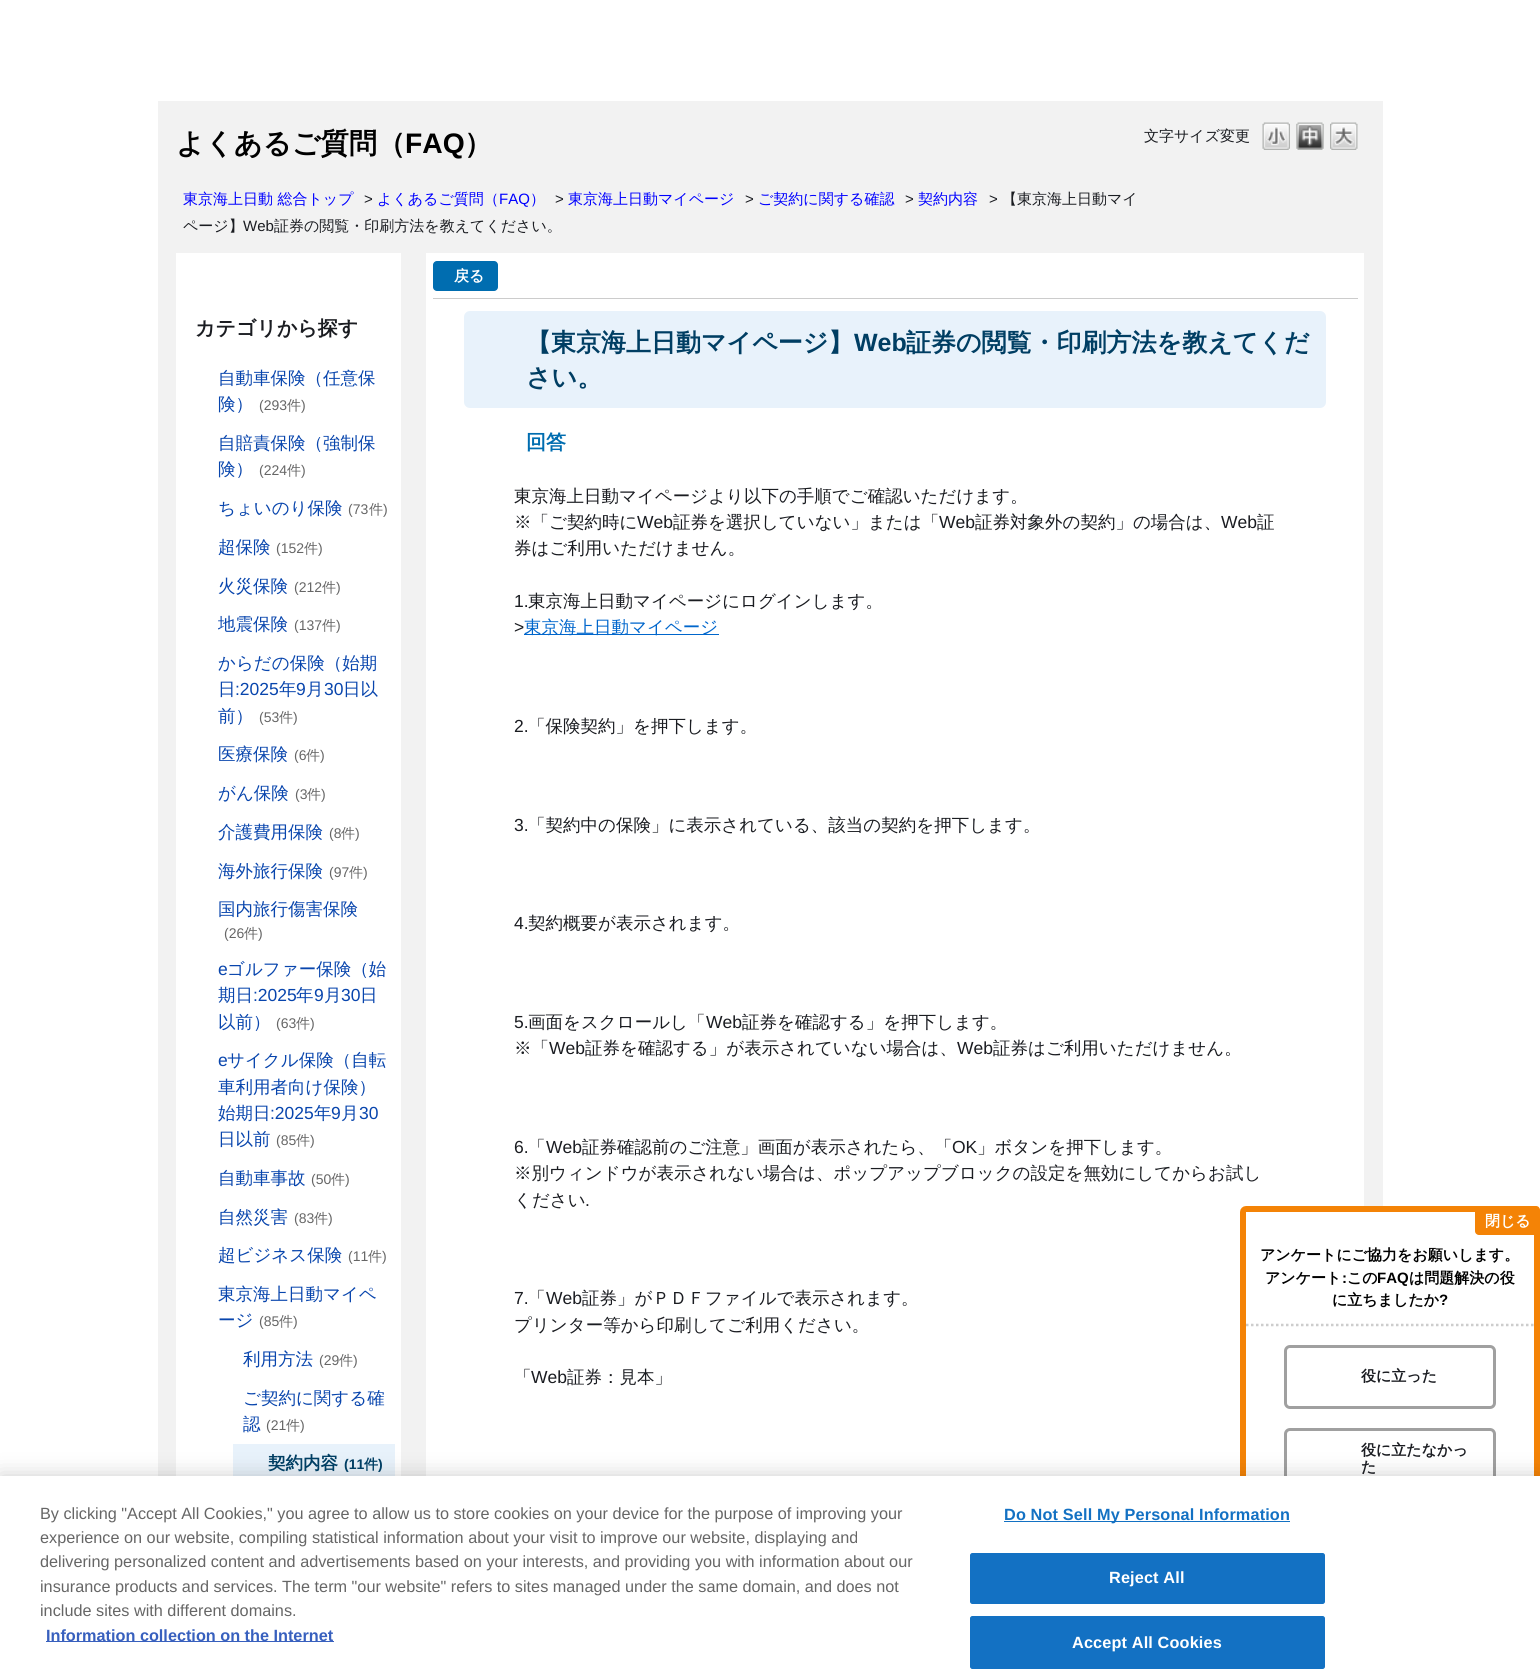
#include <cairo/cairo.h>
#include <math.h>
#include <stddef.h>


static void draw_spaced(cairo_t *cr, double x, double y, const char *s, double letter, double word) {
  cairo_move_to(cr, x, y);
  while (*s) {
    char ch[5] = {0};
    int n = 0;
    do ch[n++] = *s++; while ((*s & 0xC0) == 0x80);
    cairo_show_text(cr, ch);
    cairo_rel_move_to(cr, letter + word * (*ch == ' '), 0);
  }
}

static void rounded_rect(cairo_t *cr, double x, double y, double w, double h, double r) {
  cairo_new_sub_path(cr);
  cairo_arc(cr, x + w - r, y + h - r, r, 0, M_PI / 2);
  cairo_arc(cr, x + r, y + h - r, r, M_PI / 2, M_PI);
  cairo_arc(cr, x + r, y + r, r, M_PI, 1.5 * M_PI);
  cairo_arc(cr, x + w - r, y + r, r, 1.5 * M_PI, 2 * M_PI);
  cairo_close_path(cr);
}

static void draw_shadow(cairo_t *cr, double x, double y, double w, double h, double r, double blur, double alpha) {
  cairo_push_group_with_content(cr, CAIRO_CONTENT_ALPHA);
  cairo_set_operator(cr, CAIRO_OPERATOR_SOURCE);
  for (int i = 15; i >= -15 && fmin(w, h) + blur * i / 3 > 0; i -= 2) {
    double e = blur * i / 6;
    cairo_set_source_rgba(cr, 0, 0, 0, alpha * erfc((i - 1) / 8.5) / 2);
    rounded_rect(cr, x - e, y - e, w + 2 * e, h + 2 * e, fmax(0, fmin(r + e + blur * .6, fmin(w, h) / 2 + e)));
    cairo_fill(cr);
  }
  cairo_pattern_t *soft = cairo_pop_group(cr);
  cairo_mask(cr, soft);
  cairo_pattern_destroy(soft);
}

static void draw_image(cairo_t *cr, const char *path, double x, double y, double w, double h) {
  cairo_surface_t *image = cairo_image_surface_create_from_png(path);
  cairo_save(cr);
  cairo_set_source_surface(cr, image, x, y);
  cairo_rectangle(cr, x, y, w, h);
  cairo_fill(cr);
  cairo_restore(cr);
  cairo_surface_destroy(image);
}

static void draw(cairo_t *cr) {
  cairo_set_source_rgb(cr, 1, 1, 1);
  cairo_paint(cr);
  cairo_set_source_rgb(cr, 242 / 255.0, 242 / 255.0, 242 / 255.0);
  cairo_rectangle(cr, 158, 101, 1225, 1375);
  cairo_fill(cr);
  draw_image(cr, "images/1.png", 1262, 122, 28, 28);
  draw_image(cr, "images/2.png", 1296, 122, 28, 28);
  draw_image(cr, "images/3.png", 1330, 122, 28, 28);
  cairo_set_source_rgb(cr, 1, 1, 1);
  cairo_rectangle(cr, 176, 253, 225, 1223);
  cairo_fill(cr);
  cairo_set_source_rgb(cr, 232 / 255.0, 242 / 255.0, 251 / 255.0);
  cairo_rectangle(cr, 233, 1444, 162, 32);
  cairo_fill(cr);
  cairo_set_source_rgb(cr, 1, 1, 1);
  cairo_rectangle(cr, 426, 253, 938, 1223);
  cairo_fill(cr);
  cairo_set_source_rgb(cr, 204 / 255.0, 204 / 255.0, 204 / 255.0);
  cairo_rectangle(cr, 433, 298, 925, 1);
  cairo_fill(cr);
  cairo_set_source_rgb(cr, 0, 109 / 255.0, 176 / 255.0);
  rounded_rect(cr, 433, 261, 65, 30, 4);
  cairo_fill(cr);
  cairo_set_source_rgb(cr, 232 / 255.0, 242 / 255.0, 251 / 255.0);
  rounded_rect(cr, 464, 311, 862, 97, 6);
  cairo_fill(cr);
  cairo_set_source_rgb(cr, 0, 102 / 255.0, 204 / 255.0);
  cairo_rectangle(cr, 524, 634, 195, 1);
  cairo_fill(cr);
  cairo_set_source_rgb(cr, 1, 1, 1);
  rounded_rect(cr, 1243, 1209, 294, 309, 3);
  cairo_fill_preserve(cr);
  cairo_set_source_rgb(cr, 244 / 255.0, 131 / 255.0, 6 / 255.0);
  cairo_set_line_width(cr, 6);
  cairo_stroke(cr);
  rounded_rect(cr, 1475, 1206, 65, 29, 4);
  cairo_fill(cr);
  cairo_new_path(cr);
  cairo_move_to(cr, 1246, 1325);
  cairo_line_to(cr, 1534, 1325);
  cairo_set_source_rgb(cr, 205 / 255.0, 205 / 255.0, 205 / 255.0);
  cairo_set_line_width(cr, 2.5);
  cairo_set_dash(cr, (double[]){2.5, 2.5}, 2, 0);
  cairo_stroke(cr);
  rounded_rect(cr, 1285.5, 1346.5, 209, 61, 4.5);
  cairo_set_source_rgb(cr, 160 / 255.0, 160 / 255.0, 160 / 255.0);
  cairo_set_line_width(cr, 3);
  cairo_set_dash(cr, NULL, 0, 0);
  cairo_stroke(cr);
  rounded_rect(cr, 1285.5, 1429.5, 209, 60, 4.5);
  cairo_stroke(cr);
  cairo_set_source_rgb(cr, 0, 0, 0);
  draw_shadow(cr, 0, 1476, 1540, 200, 0, 11, 0.2);
  cairo_set_source_rgb(cr, 1, 1, 1);
  cairo_rectangle(cr, 0, 1476, 1540, 200);
  cairo_fill(cr);
  cairo_set_source_rgb(cr, 56 / 255.0, 96 / 255.0, 190 / 255.0);
  cairo_rectangle(cr, 46, 1641, 288, 1);
  cairo_fill(cr);
  cairo_set_source_rgb(cr, 19 / 255.0, 113 / 255.0, 195 / 255.0);
  cairo_rectangle(cr, 1004, 1521, 286, 1);
  cairo_fill(cr);
  rounded_rect(cr, 970.5, 1553.5, 354, 50, 2);
  cairo_fill_preserve(cr);
  cairo_set_line_width(cr, 1);
  cairo_stroke(cr);
  rounded_rect(cr, 970.5, 1616.5, 354, 52, 2);
  cairo_fill_preserve(cr);
  cairo_stroke(cr);
  cairo_select_font_face(cr, "WenQuanYi Zen Hei Medium", CAIRO_FONT_SLANT_NORMAL, CAIRO_FONT_WEIGHT_NORMAL);
  cairo_set_font_size(cr, 15);
  cairo_set_source_rgb(cr, 26 / 255.0, 28 / 255.0, 33 / 255.0);
  cairo_move_to(cr, 1144, 141);
  cairo_show_text(cr, "文字サイズ変更");
  cairo_set_source_rgb(cr, 0, 0, 1);
  cairo_move_to(cr, 183, 204);
  cairo_show_text(cr, "東京海上日動 総合トップ");
  cairo_select_font_face(cr, "Liberation Sans", CAIRO_FONT_SLANT_NORMAL, CAIRO_FONT_WEIGHT_NORMAL);
  cairo_set_source_rgb(cr, 26 / 255.0, 28 / 255.0, 33 / 255.0);
  cairo_move_to(cr, 364, 204);
  cairo_show_text(cr, ">");
  cairo_select_font_face(cr, "WenQuanYi Zen Hei Medium", CAIRO_FONT_SLANT_NORMAL, CAIRO_FONT_WEIGHT_NORMAL);
  cairo_set_source_rgb(cr, 0, 0, 1);
  cairo_move_to(cr, 377, 204);
  cairo_show_text(cr, "よくあるご質問（");
  cairo_select_font_face(cr, "Liberation Sans", CAIRO_FONT_SLANT_NORMAL, CAIRO_FONT_WEIGHT_NORMAL);
  cairo_move_to(cr, 499, 204);
  cairo_show_text(cr, "FAQ");
  cairo_select_font_face(cr, "WenQuanYi Zen Hei Medium", CAIRO_FONT_SLANT_NORMAL, CAIRO_FONT_WEIGHT_NORMAL);
  cairo_move_to(cr, 530, 204);
  cairo_show_text(cr, "）");
  cairo_select_font_face(cr, "Liberation Sans", CAIRO_FONT_SLANT_NORMAL, CAIRO_FONT_WEIGHT_NORMAL);
  cairo_set_source_rgb(cr, 26 / 255.0, 28 / 255.0, 33 / 255.0);
  cairo_move_to(cr, 555, 204);
  cairo_show_text(cr, ">");
  cairo_select_font_face(cr, "WenQuanYi Zen Hei Medium", CAIRO_FONT_SLANT_NORMAL, CAIRO_FONT_WEIGHT_NORMAL);
  cairo_set_source_rgb(cr, 0, 0, 1);
  cairo_move_to(cr, 568, 204);
  cairo_show_text(cr, "東京海上日動マイページ");
  cairo_select_font_face(cr, "Liberation Sans", CAIRO_FONT_SLANT_NORMAL, CAIRO_FONT_WEIGHT_NORMAL);
  cairo_set_source_rgb(cr, 26 / 255.0, 28 / 255.0, 33 / 255.0);
  cairo_move_to(cr, 745, 204);
  cairo_show_text(cr, ">");
  cairo_select_font_face(cr, "WenQuanYi Zen Hei Medium", CAIRO_FONT_SLANT_NORMAL, CAIRO_FONT_WEIGHT_NORMAL);
  cairo_set_source_rgb(cr, 0, 0, 1);
  cairo_move_to(cr, 758, 204);
  cairo_show_text(cr, "ご契約に関する確認");
  cairo_select_font_face(cr, "Liberation Sans", CAIRO_FONT_SLANT_NORMAL, CAIRO_FONT_WEIGHT_NORMAL);
  cairo_set_source_rgb(cr, 26 / 255.0, 28 / 255.0, 33 / 255.0);
  cairo_move_to(cr, 905, 204);
  cairo_show_text(cr, ">");
  cairo_select_font_face(cr, "WenQuanYi Zen Hei Medium", CAIRO_FONT_SLANT_NORMAL, CAIRO_FONT_WEIGHT_NORMAL);
  cairo_set_source_rgb(cr, 0, 0, 1);
  cairo_move_to(cr, 918, 204);
  cairo_show_text(cr, "契約内容");
  cairo_select_font_face(cr, "Liberation Sans", CAIRO_FONT_SLANT_NORMAL, CAIRO_FONT_WEIGHT_NORMAL);
  cairo_set_source_rgb(cr, 26 / 255.0, 28 / 255.0, 33 / 255.0);
  cairo_move_to(cr, 989, 204);
  cairo_show_text(cr, ">");
  cairo_select_font_face(cr, "WenQuanYi Zen Hei Medium", CAIRO_FONT_SLANT_NORMAL, CAIRO_FONT_WEIGHT_NORMAL);
  cairo_move_to(cr, 1002, 204);
  cairo_show_text(cr, "【東京海上日動マイ");
  cairo_move_to(cr, 183, 231);
  cairo_show_text(cr, "ページ】");
  cairo_select_font_face(cr, "Liberation Sans", CAIRO_FONT_SLANT_NORMAL, CAIRO_FONT_WEIGHT_NORMAL);
  cairo_move_to(cr, 243, 231);
  cairo_show_text(cr, "Web");
  cairo_select_font_face(cr, "WenQuanYi Zen Hei Medium", CAIRO_FONT_SLANT_NORMAL, CAIRO_FONT_WEIGHT_NORMAL);
  cairo_move_to(cr, 274, 231);
  cairo_show_text(cr, "証券の閲覧・印刷方法を教えてください。");
  cairo_select_font_face(cr, "WenQuanYi Zen Hei", CAIRO_FONT_SLANT_NORMAL, CAIRO_FONT_WEIGHT_BOLD);
  cairo_set_font_size(cr, 20);
  cairo_move_to(cr, 195, 335);
  cairo_show_text(cr, "カテゴリから探す");
  cairo_select_font_face(cr, "WenQuanYi Zen Hei Medium", CAIRO_FONT_SLANT_NORMAL, CAIRO_FONT_WEIGHT_NORMAL);
  cairo_set_font_size(cr, 17.5);
  cairo_set_source_rgb(cr, 8 / 255.0, 69 / 255.0, 173 / 255.0);
  cairo_move_to(cr, 218, 384);
  cairo_show_text(cr, "自動車保険（任意保");
  cairo_move_to(cr, 218, 410);
  cairo_show_text(cr, "険）");
  cairo_select_font_face(cr, "Liberation Sans", CAIRO_FONT_SLANT_NORMAL, CAIRO_FONT_WEIGHT_NORMAL);
  cairo_set_font_size(cr, 14);
  cairo_set_source_rgb(cr, 102 / 255.0, 102 / 255.0, 102 / 255.0);
  cairo_move_to(cr, 259, 410);
  cairo_show_text(cr, "(293");
  cairo_select_font_face(cr, "WenQuanYi Zen Hei Medium", CAIRO_FONT_SLANT_NORMAL, CAIRO_FONT_WEIGHT_NORMAL);
  cairo_move_to(cr, 287, 410);
  cairo_show_text(cr, "件");
  cairo_select_font_face(cr, "Liberation Sans", CAIRO_FONT_SLANT_NORMAL, CAIRO_FONT_WEIGHT_NORMAL);
  cairo_move_to(cr, 301, 410);
  cairo_show_text(cr, ")");
  cairo_select_font_face(cr, "WenQuanYi Zen Hei Medium", CAIRO_FONT_SLANT_NORMAL, CAIRO_FONT_WEIGHT_NORMAL);
  cairo_set_font_size(cr, 17.5);
  cairo_set_source_rgb(cr, 8 / 255.0, 69 / 255.0, 173 / 255.0);
  cairo_move_to(cr, 218, 449);
  cairo_show_text(cr, "自賠責保険（強制保");
  cairo_move_to(cr, 218, 475);
  cairo_show_text(cr, "険）");
  cairo_select_font_face(cr, "Liberation Sans", CAIRO_FONT_SLANT_NORMAL, CAIRO_FONT_WEIGHT_NORMAL);
  cairo_set_font_size(cr, 14);
  cairo_set_source_rgb(cr, 102 / 255.0, 102 / 255.0, 102 / 255.0);
  cairo_move_to(cr, 259, 475);
  cairo_show_text(cr, "(224");
  cairo_select_font_face(cr, "WenQuanYi Zen Hei Medium", CAIRO_FONT_SLANT_NORMAL, CAIRO_FONT_WEIGHT_NORMAL);
  cairo_move_to(cr, 287, 475);
  cairo_show_text(cr, "件");
  cairo_select_font_face(cr, "Liberation Sans", CAIRO_FONT_SLANT_NORMAL, CAIRO_FONT_WEIGHT_NORMAL);
  cairo_move_to(cr, 301, 475);
  cairo_show_text(cr, ")");
  cairo_select_font_face(cr, "WenQuanYi Zen Hei Medium", CAIRO_FONT_SLANT_NORMAL, CAIRO_FONT_WEIGHT_NORMAL);
  cairo_set_font_size(cr, 17.5);
  cairo_set_source_rgb(cr, 8 / 255.0, 69 / 255.0, 173 / 255.0);
  cairo_move_to(cr, 218, 514);
  cairo_show_text(cr, "ちょいのり保険");
  cairo_select_font_face(cr, "Liberation Sans", CAIRO_FONT_SLANT_NORMAL, CAIRO_FONT_WEIGHT_NORMAL);
  cairo_set_font_size(cr, 14);
  cairo_set_source_rgb(cr, 102 / 255.0, 102 / 255.0, 102 / 255.0);
  cairo_move_to(cr, 348, 514);
  cairo_show_text(cr, "(73");
  cairo_select_font_face(cr, "WenQuanYi Zen Hei Medium", CAIRO_FONT_SLANT_NORMAL, CAIRO_FONT_WEIGHT_NORMAL);
  cairo_move_to(cr, 369, 514);
  cairo_show_text(cr, "件");
  cairo_select_font_face(cr, "Liberation Sans", CAIRO_FONT_SLANT_NORMAL, CAIRO_FONT_WEIGHT_NORMAL);
  cairo_move_to(cr, 383, 514);
  cairo_show_text(cr, ")");
  cairo_select_font_face(cr, "WenQuanYi Zen Hei Medium", CAIRO_FONT_SLANT_NORMAL, CAIRO_FONT_WEIGHT_NORMAL);
  cairo_set_font_size(cr, 17.5);
  cairo_set_source_rgb(cr, 8 / 255.0, 69 / 255.0, 173 / 255.0);
  cairo_move_to(cr, 218, 553);
  cairo_show_text(cr, "超保険");
  cairo_select_font_face(cr, "Liberation Sans", CAIRO_FONT_SLANT_NORMAL, CAIRO_FONT_WEIGHT_NORMAL);
  cairo_set_font_size(cr, 14);
  cairo_set_source_rgb(cr, 102 / 255.0, 102 / 255.0, 102 / 255.0);
  cairo_move_to(cr, 276, 553);
  cairo_show_text(cr, "(152");
  cairo_select_font_face(cr, "WenQuanYi Zen Hei Medium", CAIRO_FONT_SLANT_NORMAL, CAIRO_FONT_WEIGHT_NORMAL);
  cairo_move_to(cr, 304, 553);
  cairo_show_text(cr, "件");
  cairo_select_font_face(cr, "Liberation Sans", CAIRO_FONT_SLANT_NORMAL, CAIRO_FONT_WEIGHT_NORMAL);
  cairo_move_to(cr, 318, 553);
  cairo_show_text(cr, ")");
  cairo_select_font_face(cr, "WenQuanYi Zen Hei Medium", CAIRO_FONT_SLANT_NORMAL, CAIRO_FONT_WEIGHT_NORMAL);
  cairo_set_font_size(cr, 17.5);
  cairo_set_source_rgb(cr, 8 / 255.0, 69 / 255.0, 173 / 255.0);
  cairo_move_to(cr, 218, 592);
  cairo_show_text(cr, "火災保険");
  cairo_select_font_face(cr, "Liberation Sans", CAIRO_FONT_SLANT_NORMAL, CAIRO_FONT_WEIGHT_NORMAL);
  cairo_set_font_size(cr, 14);
  cairo_set_source_rgb(cr, 102 / 255.0, 102 / 255.0, 102 / 255.0);
  cairo_move_to(cr, 294, 592);
  cairo_show_text(cr, "(212");
  cairo_select_font_face(cr, "WenQuanYi Zen Hei Medium", CAIRO_FONT_SLANT_NORMAL, CAIRO_FONT_WEIGHT_NORMAL);
  cairo_move_to(cr, 322, 592);
  cairo_show_text(cr, "件");
  cairo_select_font_face(cr, "Liberation Sans", CAIRO_FONT_SLANT_NORMAL, CAIRO_FONT_WEIGHT_NORMAL);
  cairo_move_to(cr, 336, 592);
  cairo_show_text(cr, ")");
  cairo_save(cr);
  cairo_rectangle(cr, 218, 611, 171, 27);
  cairo_clip(cr);
  cairo_select_font_face(cr, "WenQuanYi Zen Hei Medium", CAIRO_FONT_SLANT_NORMAL, CAIRO_FONT_WEIGHT_NORMAL);
  cairo_set_font_size(cr, 17.5);
  cairo_set_source_rgb(cr, 8 / 255.0, 69 / 255.0, 173 / 255.0);
  cairo_move_to(cr, 218, 630);
  cairo_show_text(cr, "地震保険");
  cairo_restore(cr);
  cairo_move_to(cr, 294, 630);
  cairo_show_text(cr, "(137");
  cairo_select_font_face(cr, "WenQuanYi Zen Hei Medium", CAIRO_FONT_SLANT_NORMAL, CAIRO_FONT_WEIGHT_NORMAL);
  cairo_move_to(cr, 322, 630);
  cairo_show_text(cr, "件");
  cairo_select_font_face(cr, "Liberation Sans", CAIRO_FONT_SLANT_NORMAL, CAIRO_FONT_WEIGHT_NORMAL);
  cairo_move_to(cr, 336, 630);
  cairo_show_text(cr, ")");
  cairo_select_font_face(cr, "WenQuanYi Zen Hei Medium", CAIRO_FONT_SLANT_NORMAL, CAIRO_FONT_WEIGHT_NORMAL);
  cairo_set_font_size(cr, 17.5);
  cairo_set_source_rgb(cr, 8 / 255.0, 69 / 255.0, 173 / 255.0);
  cairo_move_to(cr, 218, 669);
  cairo_show_text(cr, "からだの保険（始期");
  cairo_move_to(cr, 218, 695);
  cairo_show_text(cr, "日");
  cairo_select_font_face(cr, "Liberation Sans", CAIRO_FONT_SLANT_NORMAL, CAIRO_FONT_WEIGHT_NORMAL);
  cairo_move_to(cr, 235, 695);
  cairo_show_text(cr, ":2025");
  cairo_select_font_face(cr, "WenQuanYi Zen Hei Medium", CAIRO_FONT_SLANT_NORMAL, CAIRO_FONT_WEIGHT_NORMAL);
  cairo_move_to(cr, 279, 695);
  cairo_show_text(cr, "年");
  cairo_select_font_face(cr, "Liberation Sans", CAIRO_FONT_SLANT_NORMAL, CAIRO_FONT_WEIGHT_NORMAL);
  cairo_move_to(cr, 296, 695);
  cairo_show_text(cr, "9");
  cairo_select_font_face(cr, "WenQuanYi Zen Hei Medium", CAIRO_FONT_SLANT_NORMAL, CAIRO_FONT_WEIGHT_NORMAL);
  cairo_move_to(cr, 306, 695);
  cairo_show_text(cr, "月");
  cairo_select_font_face(cr, "Liberation Sans", CAIRO_FONT_SLANT_NORMAL, CAIRO_FONT_WEIGHT_NORMAL);
  cairo_move_to(cr, 324, 695);
  cairo_show_text(cr, "30");
  cairo_select_font_face(cr, "WenQuanYi Zen Hei Medium", CAIRO_FONT_SLANT_NORMAL, CAIRO_FONT_WEIGHT_NORMAL);
  cairo_move_to(cr, 343, 695);
  cairo_show_text(cr, "日以");
  cairo_move_to(cr, 218, 722);
  cairo_show_text(cr, "前）");
  cairo_select_font_face(cr, "Liberation Sans", CAIRO_FONT_SLANT_NORMAL, CAIRO_FONT_WEIGHT_NORMAL);
  cairo_set_font_size(cr, 14);
  cairo_set_source_rgb(cr, 102 / 255.0, 102 / 255.0, 102 / 255.0);
  cairo_move_to(cr, 259, 722);
  cairo_show_text(cr, "(53");
  cairo_select_font_face(cr, "WenQuanYi Zen Hei Medium", CAIRO_FONT_SLANT_NORMAL, CAIRO_FONT_WEIGHT_NORMAL);
  cairo_move_to(cr, 279, 722);
  cairo_show_text(cr, "件");
  cairo_select_font_face(cr, "Liberation Sans", CAIRO_FONT_SLANT_NORMAL, CAIRO_FONT_WEIGHT_NORMAL);
  cairo_move_to(cr, 293, 722);
  cairo_show_text(cr, ")");
  cairo_select_font_face(cr, "WenQuanYi Zen Hei Medium", CAIRO_FONT_SLANT_NORMAL, CAIRO_FONT_WEIGHT_NORMAL);
  cairo_set_font_size(cr, 17.5);
  cairo_set_source_rgb(cr, 8 / 255.0, 69 / 255.0, 173 / 255.0);
  cairo_move_to(cr, 218, 760);
  cairo_show_text(cr, "医療保険");
  cairo_select_font_face(cr, "Liberation Sans", CAIRO_FONT_SLANT_NORMAL, CAIRO_FONT_WEIGHT_NORMAL);
  cairo_set_font_size(cr, 14);
  cairo_set_source_rgb(cr, 102 / 255.0, 102 / 255.0, 102 / 255.0);
  cairo_move_to(cr, 294, 760);
  cairo_show_text(cr, "(6");
  cairo_select_font_face(cr, "WenQuanYi Zen Hei Medium", CAIRO_FONT_SLANT_NORMAL, CAIRO_FONT_WEIGHT_NORMAL);
  cairo_move_to(cr, 306, 760);
  cairo_show_text(cr, "件");
  cairo_select_font_face(cr, "Liberation Sans", CAIRO_FONT_SLANT_NORMAL, CAIRO_FONT_WEIGHT_NORMAL);
  cairo_move_to(cr, 320, 760);
  cairo_show_text(cr, ")");
  cairo_select_font_face(cr, "WenQuanYi Zen Hei Medium", CAIRO_FONT_SLANT_NORMAL, CAIRO_FONT_WEIGHT_NORMAL);
  cairo_set_font_size(cr, 17.5);
  cairo_set_source_rgb(cr, 8 / 255.0, 69 / 255.0, 173 / 255.0);
  cairo_move_to(cr, 218, 799);
  cairo_show_text(cr, "がん保険");
  cairo_select_font_face(cr, "Liberation Sans", CAIRO_FONT_SLANT_NORMAL, CAIRO_FONT_WEIGHT_NORMAL);
  cairo_set_font_size(cr, 14);
  cairo_set_source_rgb(cr, 102 / 255.0, 102 / 255.0, 102 / 255.0);
  cairo_move_to(cr, 295, 799);
  cairo_show_text(cr, "(3");
  cairo_select_font_face(cr, "WenQuanYi Zen Hei Medium", CAIRO_FONT_SLANT_NORMAL, CAIRO_FONT_WEIGHT_NORMAL);
  cairo_move_to(cr, 307, 799);
  cairo_show_text(cr, "件");
  cairo_select_font_face(cr, "Liberation Sans", CAIRO_FONT_SLANT_NORMAL, CAIRO_FONT_WEIGHT_NORMAL);
  cairo_move_to(cr, 321, 799);
  cairo_show_text(cr, ")");
  cairo_select_font_face(cr, "WenQuanYi Zen Hei Medium", CAIRO_FONT_SLANT_NORMAL, CAIRO_FONT_WEIGHT_NORMAL);
  cairo_set_font_size(cr, 17.5);
  cairo_set_source_rgb(cr, 8 / 255.0, 69 / 255.0, 173 / 255.0);
  cairo_move_to(cr, 218, 838);
  cairo_show_text(cr, "介護費用保険");
  cairo_select_font_face(cr, "Liberation Sans", CAIRO_FONT_SLANT_NORMAL, CAIRO_FONT_WEIGHT_NORMAL);
  cairo_set_font_size(cr, 14);
  cairo_set_source_rgb(cr, 102 / 255.0, 102 / 255.0, 102 / 255.0);
  cairo_move_to(cr, 329, 838);
  cairo_show_text(cr, "(8");
  cairo_select_font_face(cr, "WenQuanYi Zen Hei Medium", CAIRO_FONT_SLANT_NORMAL, CAIRO_FONT_WEIGHT_NORMAL);
  cairo_move_to(cr, 341, 838);
  cairo_show_text(cr, "件");
  cairo_select_font_face(cr, "Liberation Sans", CAIRO_FONT_SLANT_NORMAL, CAIRO_FONT_WEIGHT_NORMAL);
  cairo_move_to(cr, 355, 838);
  cairo_show_text(cr, ")");
  cairo_select_font_face(cr, "WenQuanYi Zen Hei Medium", CAIRO_FONT_SLANT_NORMAL, CAIRO_FONT_WEIGHT_NORMAL);
  cairo_set_font_size(cr, 17.5);
  cairo_set_source_rgb(cr, 8 / 255.0, 69 / 255.0, 173 / 255.0);
  cairo_move_to(cr, 218, 877);
  cairo_show_text(cr, "海外旅行保険");
  cairo_select_font_face(cr, "Liberation Sans", CAIRO_FONT_SLANT_NORMAL, CAIRO_FONT_WEIGHT_NORMAL);
  cairo_set_font_size(cr, 14);
  cairo_set_source_rgb(cr, 102 / 255.0, 102 / 255.0, 102 / 255.0);
  cairo_move_to(cr, 329, 877);
  cairo_show_text(cr, "(97");
  cairo_select_font_face(cr, "WenQuanYi Zen Hei Medium", CAIRO_FONT_SLANT_NORMAL, CAIRO_FONT_WEIGHT_NORMAL);
  cairo_move_to(cr, 349, 877);
  cairo_show_text(cr, "件");
  cairo_select_font_face(cr, "Liberation Sans", CAIRO_FONT_SLANT_NORMAL, CAIRO_FONT_WEIGHT_NORMAL);
  cairo_move_to(cr, 363, 877);
  cairo_show_text(cr, ")");
  cairo_select_font_face(cr, "WenQuanYi Zen Hei Medium", CAIRO_FONT_SLANT_NORMAL, CAIRO_FONT_WEIGHT_NORMAL);
  cairo_set_font_size(cr, 17.5);
  cairo_set_source_rgb(cr, 8 / 255.0, 69 / 255.0, 173 / 255.0);
  cairo_move_to(cr, 218, 915);
  cairo_show_text(cr, "国内旅行傷害保険");
  cairo_select_font_face(cr, "Liberation Sans", CAIRO_FONT_SLANT_NORMAL, CAIRO_FONT_WEIGHT_NORMAL);
  cairo_set_font_size(cr, 14);
  cairo_set_source_rgb(cr, 102 / 255.0, 102 / 255.0, 102 / 255.0);
  cairo_move_to(cr, 224, 938);
  cairo_show_text(cr, "(26");
  cairo_select_font_face(cr, "WenQuanYi Zen Hei Medium", CAIRO_FONT_SLANT_NORMAL, CAIRO_FONT_WEIGHT_NORMAL);
  cairo_move_to(cr, 244, 938);
  cairo_show_text(cr, "件");
  cairo_select_font_face(cr, "Liberation Sans", CAIRO_FONT_SLANT_NORMAL, CAIRO_FONT_WEIGHT_NORMAL);
  cairo_move_to(cr, 258, 938);
  cairo_show_text(cr, ")");
  cairo_set_font_size(cr, 17.5);
  cairo_set_source_rgb(cr, 8 / 255.0, 69 / 255.0, 173 / 255.0);
  cairo_move_to(cr, 218, 975);
  cairo_show_text(cr, "e");
  cairo_select_font_face(cr, "WenQuanYi Zen Hei Medium", CAIRO_FONT_SLANT_NORMAL, CAIRO_FONT_WEIGHT_NORMAL);
  cairo_move_to(cr, 227, 975);
  cairo_show_text(cr, "ゴルファー保険（始");
  cairo_move_to(cr, 218, 1001);
  cairo_show_text(cr, "期日");
  cairo_select_font_face(cr, "Liberation Sans", CAIRO_FONT_SLANT_NORMAL, CAIRO_FONT_WEIGHT_NORMAL);
  cairo_move_to(cr, 253, 1001);
  cairo_show_text(cr, ":2025");
  cairo_select_font_face(cr, "WenQuanYi Zen Hei Medium", CAIRO_FONT_SLANT_NORMAL, CAIRO_FONT_WEIGHT_NORMAL);
  cairo_move_to(cr, 296, 1001);
  cairo_show_text(cr, "年");
  cairo_select_font_face(cr, "Liberation Sans", CAIRO_FONT_SLANT_NORMAL, CAIRO_FONT_WEIGHT_NORMAL);
  cairo_move_to(cr, 314, 1001);
  cairo_show_text(cr, "9");
  cairo_select_font_face(cr, "WenQuanYi Zen Hei Medium", CAIRO_FONT_SLANT_NORMAL, CAIRO_FONT_WEIGHT_NORMAL);
  cairo_move_to(cr, 324, 1001);
  cairo_show_text(cr, "月");
  cairo_select_font_face(cr, "Liberation Sans", CAIRO_FONT_SLANT_NORMAL, CAIRO_FONT_WEIGHT_NORMAL);
  cairo_move_to(cr, 341, 1001);
  cairo_show_text(cr, "30");
  cairo_select_font_face(cr, "WenQuanYi Zen Hei Medium", CAIRO_FONT_SLANT_NORMAL, CAIRO_FONT_WEIGHT_NORMAL);
  cairo_move_to(cr, 360, 1001);
  cairo_show_text(cr, "日");
  cairo_move_to(cr, 218, 1028);
  cairo_show_text(cr, "以前）");
  cairo_select_font_face(cr, "Liberation Sans", CAIRO_FONT_SLANT_NORMAL, CAIRO_FONT_WEIGHT_NORMAL);
  cairo_set_font_size(cr, 14);
  cairo_set_source_rgb(cr, 102 / 255.0, 102 / 255.0, 102 / 255.0);
  cairo_move_to(cr, 276, 1028);
  cairo_show_text(cr, "(63");
  cairo_select_font_face(cr, "WenQuanYi Zen Hei Medium", CAIRO_FONT_SLANT_NORMAL, CAIRO_FONT_WEIGHT_NORMAL);
  cairo_move_to(cr, 296, 1028);
  cairo_show_text(cr, "件");
  cairo_select_font_face(cr, "Liberation Sans", CAIRO_FONT_SLANT_NORMAL, CAIRO_FONT_WEIGHT_NORMAL);
  cairo_move_to(cr, 310, 1028);
  cairo_show_text(cr, ")");
  cairo_set_font_size(cr, 17.5);
  cairo_set_source_rgb(cr, 8 / 255.0, 69 / 255.0, 173 / 255.0);
  cairo_move_to(cr, 218, 1066);
  cairo_show_text(cr, "e");
  cairo_select_font_face(cr, "WenQuanYi Zen Hei Medium", CAIRO_FONT_SLANT_NORMAL, CAIRO_FONT_WEIGHT_NORMAL);
  cairo_move_to(cr, 227, 1066);
  cairo_show_text(cr, "サイクル保険（自転");
  cairo_move_to(cr, 218, 1093);
  cairo_show_text(cr, "車利用者向け保険）");
  cairo_move_to(cr, 218, 1119);
  cairo_show_text(cr, "始期日");
  cairo_select_font_face(cr, "Liberation Sans", CAIRO_FONT_SLANT_NORMAL, CAIRO_FONT_WEIGHT_NORMAL);
  cairo_move_to(cr, 270, 1119);
  cairo_show_text(cr, ":2025");
  cairo_select_font_face(cr, "WenQuanYi Zen Hei Medium", CAIRO_FONT_SLANT_NORMAL, CAIRO_FONT_WEIGHT_NORMAL);
  cairo_move_to(cr, 314, 1119);
  cairo_show_text(cr, "年");
  cairo_select_font_face(cr, "Liberation Sans", CAIRO_FONT_SLANT_NORMAL, CAIRO_FONT_WEIGHT_NORMAL);
  cairo_move_to(cr, 331, 1119);
  cairo_show_text(cr, "9");
  cairo_select_font_face(cr, "WenQuanYi Zen Hei Medium", CAIRO_FONT_SLANT_NORMAL, CAIRO_FONT_WEIGHT_NORMAL);
  cairo_move_to(cr, 341, 1119);
  cairo_show_text(cr, "月");
  cairo_select_font_face(cr, "Liberation Sans", CAIRO_FONT_SLANT_NORMAL, CAIRO_FONT_WEIGHT_NORMAL);
  cairo_move_to(cr, 359, 1119);
  cairo_show_text(cr, "30");
  cairo_select_font_face(cr, "WenQuanYi Zen Hei Medium", CAIRO_FONT_SLANT_NORMAL, CAIRO_FONT_WEIGHT_NORMAL);
  cairo_move_to(cr, 218, 1145);
  cairo_show_text(cr, "日以前");
  cairo_select_font_face(cr, "Liberation Sans", CAIRO_FONT_SLANT_NORMAL, CAIRO_FONT_WEIGHT_NORMAL);
  cairo_set_font_size(cr, 14);
  cairo_set_source_rgb(cr, 102 / 255.0, 102 / 255.0, 102 / 255.0);
  cairo_move_to(cr, 276, 1145);
  cairo_show_text(cr, "(85");
  cairo_select_font_face(cr, "WenQuanYi Zen Hei Medium", CAIRO_FONT_SLANT_NORMAL, CAIRO_FONT_WEIGHT_NORMAL);
  cairo_move_to(cr, 296, 1145);
  cairo_show_text(cr, "件");
  cairo_select_font_face(cr, "Liberation Sans", CAIRO_FONT_SLANT_NORMAL, CAIRO_FONT_WEIGHT_NORMAL);
  cairo_move_to(cr, 310, 1145);
  cairo_show_text(cr, ")");
  cairo_select_font_face(cr, "WenQuanYi Zen Hei Medium", CAIRO_FONT_SLANT_NORMAL, CAIRO_FONT_WEIGHT_NORMAL);
  cairo_set_font_size(cr, 17.5);
  cairo_set_source_rgb(cr, 8 / 255.0, 69 / 255.0, 173 / 255.0);
  cairo_move_to(cr, 218, 1184);
  cairo_show_text(cr, "自動車事故");
  cairo_select_font_face(cr, "Liberation Sans", CAIRO_FONT_SLANT_NORMAL, CAIRO_FONT_WEIGHT_NORMAL);
  cairo_set_font_size(cr, 14);
  cairo_set_source_rgb(cr, 102 / 255.0, 102 / 255.0, 102 / 255.0);
  cairo_move_to(cr, 311, 1184);
  cairo_show_text(cr, "(50");
  cairo_select_font_face(cr, "WenQuanYi Zen Hei Medium", CAIRO_FONT_SLANT_NORMAL, CAIRO_FONT_WEIGHT_NORMAL);
  cairo_move_to(cr, 331, 1184);
  cairo_show_text(cr, "件");
  cairo_select_font_face(cr, "Liberation Sans", CAIRO_FONT_SLANT_NORMAL, CAIRO_FONT_WEIGHT_NORMAL);
  cairo_move_to(cr, 345, 1184);
  cairo_show_text(cr, ")");
  cairo_select_font_face(cr, "WenQuanYi Zen Hei Medium", CAIRO_FONT_SLANT_NORMAL, CAIRO_FONT_WEIGHT_NORMAL);
  cairo_set_font_size(cr, 17.5);
  cairo_set_source_rgb(cr, 8 / 255.0, 69 / 255.0, 173 / 255.0);
  cairo_move_to(cr, 218, 1223);
  cairo_show_text(cr, "自然災害");
  cairo_select_font_face(cr, "Liberation Sans", CAIRO_FONT_SLANT_NORMAL, CAIRO_FONT_WEIGHT_NORMAL);
  cairo_set_font_size(cr, 14);
  cairo_set_source_rgb(cr, 102 / 255.0, 102 / 255.0, 102 / 255.0);
  cairo_move_to(cr, 294, 1223);
  cairo_show_text(cr, "(83");
  cairo_select_font_face(cr, "WenQuanYi Zen Hei Medium", CAIRO_FONT_SLANT_NORMAL, CAIRO_FONT_WEIGHT_NORMAL);
  cairo_move_to(cr, 314, 1223);
  cairo_show_text(cr, "件");
  cairo_select_font_face(cr, "Liberation Sans", CAIRO_FONT_SLANT_NORMAL, CAIRO_FONT_WEIGHT_NORMAL);
  cairo_move_to(cr, 328, 1223);
  cairo_show_text(cr, ")");
  cairo_select_font_face(cr, "WenQuanYi Zen Hei Medium", CAIRO_FONT_SLANT_NORMAL, CAIRO_FONT_WEIGHT_NORMAL);
  cairo_set_font_size(cr, 17.5);
  cairo_set_source_rgb(cr, 8 / 255.0, 69 / 255.0, 173 / 255.0);
  cairo_move_to(cr, 218, 1261);
  cairo_show_text(cr, "超ビジネス保険");
  cairo_select_font_face(cr, "Liberation Sans", CAIRO_FONT_SLANT_NORMAL, CAIRO_FONT_WEIGHT_NORMAL);
  cairo_set_font_size(cr, 14);
  cairo_set_source_rgb(cr, 102 / 255.0, 102 / 255.0, 102 / 255.0);
  cairo_move_to(cr, 348, 1261);
  cairo_show_text(cr, "(11");
  cairo_select_font_face(cr, "WenQuanYi Zen Hei Medium", CAIRO_FONT_SLANT_NORMAL, CAIRO_FONT_WEIGHT_NORMAL);
  cairo_move_to(cr, 368, 1261);
  cairo_show_text(cr, "件");
  cairo_select_font_face(cr, "Liberation Sans", CAIRO_FONT_SLANT_NORMAL, CAIRO_FONT_WEIGHT_NORMAL);
  cairo_move_to(cr, 382, 1261);
  cairo_show_text(cr, ")");
  cairo_select_font_face(cr, "WenQuanYi Zen Hei Medium", CAIRO_FONT_SLANT_NORMAL, CAIRO_FONT_WEIGHT_NORMAL);
  cairo_set_font_size(cr, 17.5);
  cairo_set_source_rgb(cr, 8 / 255.0, 69 / 255.0, 173 / 255.0);
  cairo_move_to(cr, 218, 1300);
  cairo_show_text(cr, "東京海上日動マイペ");
  cairo_move_to(cr, 218, 1326);
  cairo_show_text(cr, "ージ");
  cairo_select_font_face(cr, "Liberation Sans", CAIRO_FONT_SLANT_NORMAL, CAIRO_FONT_WEIGHT_NORMAL);
  cairo_set_font_size(cr, 14);
  cairo_set_source_rgb(cr, 102 / 255.0, 102 / 255.0, 102 / 255.0);
  cairo_move_to(cr, 259, 1326);
  cairo_show_text(cr, "(85");
  cairo_select_font_face(cr, "WenQuanYi Zen Hei Medium", CAIRO_FONT_SLANT_NORMAL, CAIRO_FONT_WEIGHT_NORMAL);
  cairo_move_to(cr, 279, 1326);
  cairo_show_text(cr, "件");
  cairo_select_font_face(cr, "Liberation Sans", CAIRO_FONT_SLANT_NORMAL, CAIRO_FONT_WEIGHT_NORMAL);
  cairo_move_to(cr, 293, 1326);
  cairo_show_text(cr, ")");
  cairo_select_font_face(cr, "WenQuanYi Zen Hei Medium", CAIRO_FONT_SLANT_NORMAL, CAIRO_FONT_WEIGHT_NORMAL);
  cairo_set_font_size(cr, 17.5);
  cairo_set_source_rgb(cr, 8 / 255.0, 69 / 255.0, 173 / 255.0);
  cairo_move_to(cr, 243, 1365);
  cairo_show_text(cr, "利用方法");
  cairo_select_font_face(cr, "Liberation Sans", CAIRO_FONT_SLANT_NORMAL, CAIRO_FONT_WEIGHT_NORMAL);
  cairo_set_font_size(cr, 14);
  cairo_set_source_rgb(cr, 102 / 255.0, 102 / 255.0, 102 / 255.0);
  cairo_move_to(cr, 319, 1365);
  cairo_show_text(cr, "(29");
  cairo_select_font_face(cr, "WenQuanYi Zen Hei Medium", CAIRO_FONT_SLANT_NORMAL, CAIRO_FONT_WEIGHT_NORMAL);
  cairo_move_to(cr, 339, 1365);
  cairo_show_text(cr, "件");
  cairo_select_font_face(cr, "Liberation Sans", CAIRO_FONT_SLANT_NORMAL, CAIRO_FONT_WEIGHT_NORMAL);
  cairo_move_to(cr, 353, 1365);
  cairo_show_text(cr, ")");
  cairo_select_font_face(cr, "WenQuanYi Zen Hei Medium", CAIRO_FONT_SLANT_NORMAL, CAIRO_FONT_WEIGHT_NORMAL);
  cairo_set_font_size(cr, 17.5);
  cairo_set_source_rgb(cr, 8 / 255.0, 69 / 255.0, 173 / 255.0);
  cairo_move_to(cr, 243, 1404);
  cairo_show_text(cr, "ご契約に関する確");
  cairo_save(cr);
  cairo_rectangle(cr, 243, 1385, 146, 53);
  cairo_clip(cr);
  cairo_move_to(cr, 243, 1430);
  cairo_show_text(cr, "認");
  cairo_restore(cr);
  cairo_select_font_face(cr, "Liberation Sans", CAIRO_FONT_SLANT_NORMAL, CAIRO_FONT_WEIGHT_NORMAL);
  cairo_set_font_size(cr, 14);
  cairo_set_source_rgb(cr, 102 / 255.0, 102 / 255.0, 102 / 255.0);
  cairo_move_to(cr, 266, 1430);
  cairo_show_text(cr, "(21");
  cairo_select_font_face(cr, "WenQuanYi Zen Hei Medium", CAIRO_FONT_SLANT_NORMAL, CAIRO_FONT_WEIGHT_NORMAL);
  cairo_move_to(cr, 286, 1430);
  cairo_show_text(cr, "件");
  cairo_select_font_face(cr, "Liberation Sans", CAIRO_FONT_SLANT_NORMAL, CAIRO_FONT_WEIGHT_NORMAL);
  cairo_move_to(cr, 300, 1430);
  cairo_show_text(cr, ")");
  cairo_select_font_face(cr, "WenQuanYi Zen Hei", CAIRO_FONT_SLANT_NORMAL, CAIRO_FONT_WEIGHT_BOLD);
  cairo_set_font_size(cr, 17.5);
  cairo_set_source_rgb(cr, 0, 62 / 255.0, 99 / 255.0);
  cairo_move_to(cr, 268, 1469);
  cairo_show_text(cr, "契約内容");
  cairo_select_font_face(cr, "Liberation Sans", CAIRO_FONT_SLANT_NORMAL, CAIRO_FONT_WEIGHT_BOLD);
  cairo_set_font_size(cr, 14);
  cairo_move_to(cr, 344, 1469);
  cairo_show_text(cr, "(11");
  cairo_select_font_face(cr, "WenQuanYi Zen Hei", CAIRO_FONT_SLANT_NORMAL, CAIRO_FONT_WEIGHT_BOLD);
  cairo_move_to(cr, 364, 1469);
  cairo_show_text(cr, "件");
  cairo_select_font_face(cr, "Liberation Sans", CAIRO_FONT_SLANT_NORMAL, CAIRO_FONT_WEIGHT_BOLD);
  cairo_move_to(cr, 378, 1469);
  cairo_show_text(cr, ")");
  cairo_select_font_face(cr, "WenQuanYi Zen Hei", CAIRO_FONT_SLANT_NORMAL, CAIRO_FONT_WEIGHT_BOLD);
  cairo_set_font_size(cr, 15);
  cairo_set_source_rgb(cr, 1, 1, 1);
  cairo_move_to(cr, 454, 281);
  cairo_show_text(cr, "戻る");
  cairo_set_font_size(cr, 25);
  cairo_set_source_rgb(cr, 0, 62 / 255.0, 99 / 255.0);
  cairo_move_to(cr, 526, 351);
  cairo_show_text(cr, "【東京海上日動マイページ】");
  cairo_select_font_face(cr, "Liberation Sans", CAIRO_FONT_SLANT_NORMAL, CAIRO_FONT_WEIGHT_BOLD);
  cairo_move_to(cr, 854, 351);
  cairo_show_text(cr, "Web");
  cairo_select_font_face(cr, "WenQuanYi Zen Hei", CAIRO_FONT_SLANT_NORMAL, CAIRO_FONT_WEIGHT_BOLD);
  cairo_move_to(cr, 906, 351);
  cairo_show_text(cr, "証券の閲覧・印刷方法を教えてくだ");
  cairo_move_to(cr, 526, 386);
  cairo_show_text(cr, "さい。");
  cairo_set_font_size(cr, 20);
  cairo_set_source_rgb(cr, 0, 109 / 255.0, 176 / 255.0);
  cairo_move_to(cr, 526, 449);
  cairo_show_text(cr, "回答");
  cairo_select_font_face(cr, "WenQuanYi Zen Hei Medium", CAIRO_FONT_SLANT_NORMAL, CAIRO_FONT_WEIGHT_NORMAL);
  cairo_set_font_size(cr, 17.5);
  cairo_set_source_rgb(cr, 26 / 255.0, 28 / 255.0, 33 / 255.0);
  cairo_move_to(cr, 514, 502);
  cairo_show_text(cr, "東京海上日動マイページより以下の手順でご確認いただけます。");
  cairo_move_to(cr, 514, 528);
  cairo_show_text(cr, "※「ご契約時に");
  cairo_select_font_face(cr, "Liberation Sans", CAIRO_FONT_SLANT_NORMAL, CAIRO_FONT_WEIGHT_NORMAL);
  cairo_move_to(cr, 637, 528);
  cairo_show_text(cr, "Web");
  cairo_select_font_face(cr, "WenQuanYi Zen Hei Medium", CAIRO_FONT_SLANT_NORMAL, CAIRO_FONT_WEIGHT_NORMAL);
  cairo_move_to(cr, 673, 528);
  cairo_show_text(cr, "証券を選択していない」または「");
  cairo_select_font_face(cr, "Liberation Sans", CAIRO_FONT_SLANT_NORMAL, CAIRO_FONT_WEIGHT_NORMAL);
  cairo_move_to(cr, 939, 528);
  cairo_show_text(cr, "Web");
  cairo_select_font_face(cr, "WenQuanYi Zen Hei Medium", CAIRO_FONT_SLANT_NORMAL, CAIRO_FONT_WEIGHT_NORMAL);
  cairo_move_to(cr, 975, 528);
  cairo_show_text(cr, "証券対象外の契約」の場合は、");
  cairo_select_font_face(cr, "Liberation Sans", CAIRO_FONT_SLANT_NORMAL, CAIRO_FONT_WEIGHT_NORMAL);
  cairo_move_to(cr, 1221, 528);
  cairo_show_text(cr, "Web");
  cairo_select_font_face(cr, "WenQuanYi Zen Hei Medium", CAIRO_FONT_SLANT_NORMAL, CAIRO_FONT_WEIGHT_NORMAL);
  cairo_move_to(cr, 1257, 528);
  cairo_show_text(cr, "証");
  cairo_move_to(cr, 514, 554);
  cairo_show_text(cr, "券はご利用いただけません。");
  cairo_select_font_face(cr, "Liberation Sans", CAIRO_FONT_SLANT_NORMAL, CAIRO_FONT_WEIGHT_NORMAL);
  cairo_move_to(cr, 514, 607);
  cairo_show_text(cr, "1.");
  cairo_select_font_face(cr, "WenQuanYi Zen Hei Medium", CAIRO_FONT_SLANT_NORMAL, CAIRO_FONT_WEIGHT_NORMAL);
  cairo_move_to(cr, 528, 607);
  cairo_show_text(cr, "東京海上日動マイページにログインします。");
  cairo_select_font_face(cr, "Liberation Sans", CAIRO_FONT_SLANT_NORMAL, CAIRO_FONT_WEIGHT_NORMAL);
  cairo_move_to(cr, 514, 633);
  cairo_show_text(cr, ">");
  cairo_select_font_face(cr, "WenQuanYi Zen Hei Medium", CAIRO_FONT_SLANT_NORMAL, CAIRO_FONT_WEIGHT_NORMAL);
  cairo_set_source_rgb(cr, 0, 102 / 255.0, 204 / 255.0);
  cairo_move_to(cr, 524, 633);
  cairo_show_text(cr, "東京海上日動マイページ");
  cairo_select_font_face(cr, "Liberation Sans", CAIRO_FONT_SLANT_NORMAL, CAIRO_FONT_WEIGHT_NORMAL);
  cairo_set_source_rgb(cr, 26 / 255.0, 28 / 255.0, 33 / 255.0);
  cairo_move_to(cr, 514, 732);
  cairo_show_text(cr, "2.");
  cairo_select_font_face(cr, "WenQuanYi Zen Hei Medium", CAIRO_FONT_SLANT_NORMAL, CAIRO_FONT_WEIGHT_NORMAL);
  cairo_move_to(cr, 528, 732);
  cairo_show_text(cr, "「保険契約」を押下します。");
  cairo_select_font_face(cr, "Liberation Sans", CAIRO_FONT_SLANT_NORMAL, CAIRO_FONT_WEIGHT_NORMAL);
  cairo_move_to(cr, 514, 831);
  cairo_show_text(cr, "3.");
  cairo_select_font_face(cr, "WenQuanYi Zen Hei Medium", CAIRO_FONT_SLANT_NORMAL, CAIRO_FONT_WEIGHT_NORMAL);
  cairo_move_to(cr, 528, 831);
  cairo_show_text(cr, "「契約中の保険」に表示されている、該当の契約を押下します。");
  cairo_select_font_face(cr, "Liberation Sans", CAIRO_FONT_SLANT_NORMAL, CAIRO_FONT_WEIGHT_NORMAL);
  cairo_move_to(cr, 514, 929);
  cairo_show_text(cr, "4.");
  cairo_select_font_face(cr, "WenQuanYi Zen Hei Medium", CAIRO_FONT_SLANT_NORMAL, CAIRO_FONT_WEIGHT_NORMAL);
  cairo_move_to(cr, 528, 929);
  cairo_show_text(cr, "契約概要が表示されます。");
  cairo_select_font_face(cr, "Liberation Sans", CAIRO_FONT_SLANT_NORMAL, CAIRO_FONT_WEIGHT_NORMAL);
  cairo_move_to(cr, 514, 1028);
  cairo_show_text(cr, "5.");
  cairo_select_font_face(cr, "WenQuanYi Zen Hei Medium", CAIRO_FONT_SLANT_NORMAL, CAIRO_FONT_WEIGHT_NORMAL);
  cairo_move_to(cr, 528, 1028);
  cairo_show_text(cr, "画面をスクロールし「");
  cairo_select_font_face(cr, "Liberation Sans", CAIRO_FONT_SLANT_NORMAL, CAIRO_FONT_WEIGHT_NORMAL);
  cairo_move_to(cr, 706, 1028);
  cairo_show_text(cr, "Web");
  cairo_select_font_face(cr, "WenQuanYi Zen Hei Medium", CAIRO_FONT_SLANT_NORMAL, CAIRO_FONT_WEIGHT_NORMAL);
  cairo_move_to(cr, 742, 1028);
  cairo_show_text(cr, "証券を確認する」を押下します。");
  cairo_move_to(cr, 514, 1054);
  cairo_show_text(cr, "※「");
  cairo_select_font_face(cr, "Liberation Sans", CAIRO_FONT_SLANT_NORMAL, CAIRO_FONT_WEIGHT_NORMAL);
  cairo_move_to(cr, 549, 1054);
  cairo_show_text(cr, "Web");
  cairo_select_font_face(cr, "WenQuanYi Zen Hei Medium", CAIRO_FONT_SLANT_NORMAL, CAIRO_FONT_WEIGHT_NORMAL);
  cairo_move_to(cr, 585, 1054);
  cairo_show_text(cr, "証券を確認する」が表示されていない場合は、");
  cairo_select_font_face(cr, "Liberation Sans", CAIRO_FONT_SLANT_NORMAL, CAIRO_FONT_WEIGHT_NORMAL);
  cairo_move_to(cr, 957, 1054);
  cairo_show_text(cr, "Web");
  cairo_select_font_face(cr, "WenQuanYi Zen Hei Medium", CAIRO_FONT_SLANT_NORMAL, CAIRO_FONT_WEIGHT_NORMAL);
  cairo_move_to(cr, 993, 1054);
  cairo_show_text(cr, "証券はご利用いただけません。");
  cairo_select_font_face(cr, "Liberation Sans", CAIRO_FONT_SLANT_NORMAL, CAIRO_FONT_WEIGHT_NORMAL);
  cairo_move_to(cr, 514, 1153);
  cairo_show_text(cr, "6.");
  cairo_select_font_face(cr, "WenQuanYi Zen Hei Medium", CAIRO_FONT_SLANT_NORMAL, CAIRO_FONT_WEIGHT_NORMAL);
  cairo_move_to(cr, 528, 1153);
  cairo_show_text(cr, "「");
  cairo_select_font_face(cr, "Liberation Sans", CAIRO_FONT_SLANT_NORMAL, CAIRO_FONT_WEIGHT_NORMAL);
  cairo_move_to(cr, 546, 1153);
  cairo_show_text(cr, "Web");
  cairo_select_font_face(cr, "WenQuanYi Zen Hei Medium", CAIRO_FONT_SLANT_NORMAL, CAIRO_FONT_WEIGHT_NORMAL);
  cairo_move_to(cr, 582, 1153);
  cairo_show_text(cr, "証券確認前のご注意」画面が表示されたら、「");
  cairo_select_font_face(cr, "Liberation Sans", CAIRO_FONT_SLANT_NORMAL, CAIRO_FONT_WEIGHT_NORMAL);
  cairo_move_to(cr, 952, 1153);
  cairo_show_text(cr, "OK");
  cairo_select_font_face(cr, "WenQuanYi Zen Hei Medium", CAIRO_FONT_SLANT_NORMAL, CAIRO_FONT_WEIGHT_NORMAL);
  cairo_move_to(cr, 977, 1153);
  cairo_show_text(cr, "」ボタンを押下します。");
  cairo_move_to(cr, 514, 1179);
  cairo_show_text(cr, "※別ウィンドウが表示されない場合は、ポップアップブロックの設定を無効にしてからお試し");
  cairo_move_to(cr, 514, 1206);
  cairo_show_text(cr, "ください");
  cairo_select_font_face(cr, "Liberation Sans", CAIRO_FONT_SLANT_NORMAL, CAIRO_FONT_WEIGHT_NORMAL);
  cairo_move_to(cr, 585, 1206);
  cairo_show_text(cr, ".");
  cairo_move_to(cr, 514, 1304);
  cairo_show_text(cr, "7.");
  cairo_select_font_face(cr, "WenQuanYi Zen Hei Medium", CAIRO_FONT_SLANT_NORMAL, CAIRO_FONT_WEIGHT_NORMAL);
  cairo_move_to(cr, 528, 1304);
  cairo_show_text(cr, "「");
  cairo_select_font_face(cr, "Liberation Sans", CAIRO_FONT_SLANT_NORMAL, CAIRO_FONT_WEIGHT_NORMAL);
  cairo_move_to(cr, 546, 1304);
  cairo_show_text(cr, "Web");
  cairo_select_font_face(cr, "WenQuanYi Zen Hei Medium", CAIRO_FONT_SLANT_NORMAL, CAIRO_FONT_WEIGHT_NORMAL);
  cairo_move_to(cr, 582, 1304);
  cairo_show_text(cr, "証券」がＰＤＦファイルで表示されます。");
  cairo_move_to(cr, 514, 1331);
  cairo_show_text(cr, "プリンター等から印刷してご利用ください。");
  cairo_move_to(cr, 514, 1383);
  cairo_show_text(cr, "「");
  cairo_select_font_face(cr, "Liberation Sans", CAIRO_FONT_SLANT_NORMAL, CAIRO_FONT_WEIGHT_NORMAL);
  cairo_move_to(cr, 531, 1383);
  cairo_show_text(cr, "Web");
  cairo_select_font_face(cr, "WenQuanYi Zen Hei Medium", CAIRO_FONT_SLANT_NORMAL, CAIRO_FONT_WEIGHT_NORMAL);
  cairo_move_to(cr, 567, 1383);
  cairo_show_text(cr, "証券：見本」");
  cairo_select_font_face(cr, "WenQuanYi Zen Hei", CAIRO_FONT_SLANT_NORMAL, CAIRO_FONT_WEIGHT_BOLD);
  cairo_set_font_size(cr, 15);
  cairo_set_source_rgb(cr, 1, 1, 1);
  cairo_move_to(cr, 1485, 1226);
  cairo_show_text(cr, "閉じる");
  cairo_set_source_rgb(cr, 0, 0, 0);
  cairo_move_to(cr, 1260, 1260);
  cairo_show_text(cr, "アンケートにご協力をお願いします。");
  cairo_move_to(cr, 1265, 1283);
  cairo_show_text(cr, "アンケート");
  cairo_select_font_face(cr, "Liberation Sans", CAIRO_FONT_SLANT_NORMAL, CAIRO_FONT_WEIGHT_BOLD);
  cairo_move_to(cr, 1342, 1283);
  cairo_show_text(cr, ":");
  cairo_select_font_face(cr, "WenQuanYi Zen Hei", CAIRO_FONT_SLANT_NORMAL, CAIRO_FONT_WEIGHT_BOLD);
  cairo_move_to(cr, 1347, 1283);
  cairo_show_text(cr, "この");
  cairo_select_font_face(cr, "Liberation Sans", CAIRO_FONT_SLANT_NORMAL, CAIRO_FONT_WEIGHT_BOLD);
  cairo_move_to(cr, 1377, 1283);
  cairo_show_text(cr, "FAQ");
  cairo_select_font_face(cr, "WenQuanYi Zen Hei", CAIRO_FONT_SLANT_NORMAL, CAIRO_FONT_WEIGHT_BOLD);
  cairo_move_to(cr, 1409, 1283);
  cairo_show_text(cr, "は問題解決の役");
  cairo_move_to(cr, 1332, 1305);
  cairo_show_text(cr, "に立ちましたか");
  cairo_select_font_face(cr, "Liberation Sans", CAIRO_FONT_SLANT_NORMAL, CAIRO_FONT_WEIGHT_BOLD);
  cairo_move_to(cr, 1439, 1305);
  cairo_show_text(cr, "?");
  cairo_select_font_face(cr, "WenQuanYi Zen Hei", CAIRO_FONT_SLANT_NORMAL, CAIRO_FONT_WEIGHT_BOLD);
  cairo_set_source_rgb(cr, 26 / 255.0, 28 / 255.0, 33 / 255.0);
  cairo_move_to(cr, 1361, 1381);
  cairo_show_text(cr, "役に立った");
  cairo_move_to(cr, 1361, 1455);
  cairo_show_text(cr, "役に立たなかっ");
  cairo_move_to(cr, 1361, 1472);
  cairo_show_text(cr, "た");
  cairo_set_font_size(cr, 28.25);
  cairo_set_source_rgb(cr, 0, 0, 0);
  cairo_move_to(cr, 176, 153);
  cairo_show_text(cr, "よくあるご質問（");
  cairo_select_font_face(cr, "Liberation Sans", CAIRO_FONT_SLANT_NORMAL, CAIRO_FONT_WEIGHT_BOLD);
  cairo_move_to(cr, 405, 153);
  cairo_show_text(cr, "FAQ");
  cairo_select_font_face(cr, "WenQuanYi Zen Hei", CAIRO_FONT_SLANT_NORMAL, CAIRO_FONT_WEIGHT_BOLD);
  cairo_move_to(cr, 464, 153);
  cairo_show_text(cr, "）");
  cairo_select_font_face(cr, "Liberation Sans", CAIRO_FONT_SLANT_NORMAL, CAIRO_FONT_WEIGHT_NORMAL);
  cairo_set_font_size(cr, 16.25);
  cairo_set_source_rgb(cr, 102 / 255.0, 102 / 255.0, 102 / 255.0);
  cairo_move_to(cr, 40, 1519);
  cairo_show_text(cr, "By clicking \"Accept All Cookies,\" you agree to allow us to store cookies on your device for the purpose of improving your");
  cairo_move_to(cr, 40, 1543);
  cairo_show_text(cr, "experience on our website, compiling statistical information about your visit to improve our website, displaying and");
  cairo_move_to(cr, 40, 1567);
  cairo_show_text(cr, "delivering personalized content and advertisements based on your interests, and providing you with information about our");
  cairo_move_to(cr, 40, 1592);
  cairo_show_text(cr, "insurance products and services. The term \"our website\" refers to sites managed under the same domain, and does not");
  cairo_move_to(cr, 40, 1616);
  cairo_show_text(cr, "include sites with different domains.");
  cairo_select_font_face(cr, "Liberation Sans", CAIRO_FONT_SLANT_NORMAL, CAIRO_FONT_WEIGHT_BOLD);
  cairo_set_source_rgb(cr, 56 / 255.0, 96 / 255.0, 190 / 255.0);
  cairo_move_to(cr, 46, 1641);
  cairo_show_text(cr, "Information collection on the Internet");
  cairo_set_source_rgb(cr, 19 / 255.0, 113 / 255.0, 195 / 255.0);
  draw_spaced(cr, 1004, 1520, "Do Not Sell My Personal Information", 0.15, 0);
  cairo_set_source_rgb(cr, 1, 1, 1);
  draw_spaced(cr, 1109, 1583, "Reject All", 0.15, 0);
  draw_spaced(cr, 1072, 1648, "Accept All Cookies", 0.15, 0);
}

int main(void) {
  cairo_surface_t *surface = cairo_image_surface_create(CAIRO_FORMAT_RGB24, 1540, 1676);
  cairo_t *cr = cairo_create(surface);
  cairo_font_options_t *options = cairo_font_options_create();
  cairo_font_options_set_hint_metrics(options, CAIRO_HINT_METRICS_OFF);
  cairo_font_options_set_hint_style(options, CAIRO_HINT_STYLE_NONE);
  cairo_set_font_options(cr, options);
  cairo_set_miter_limit(cr, 4);
  draw(cr);
  cairo_surface_write_to_png(surface, "out.png");
  cairo_font_options_destroy(options);
  cairo_destroy(cr);
  cairo_surface_destroy(surface);
  return 0;
}
